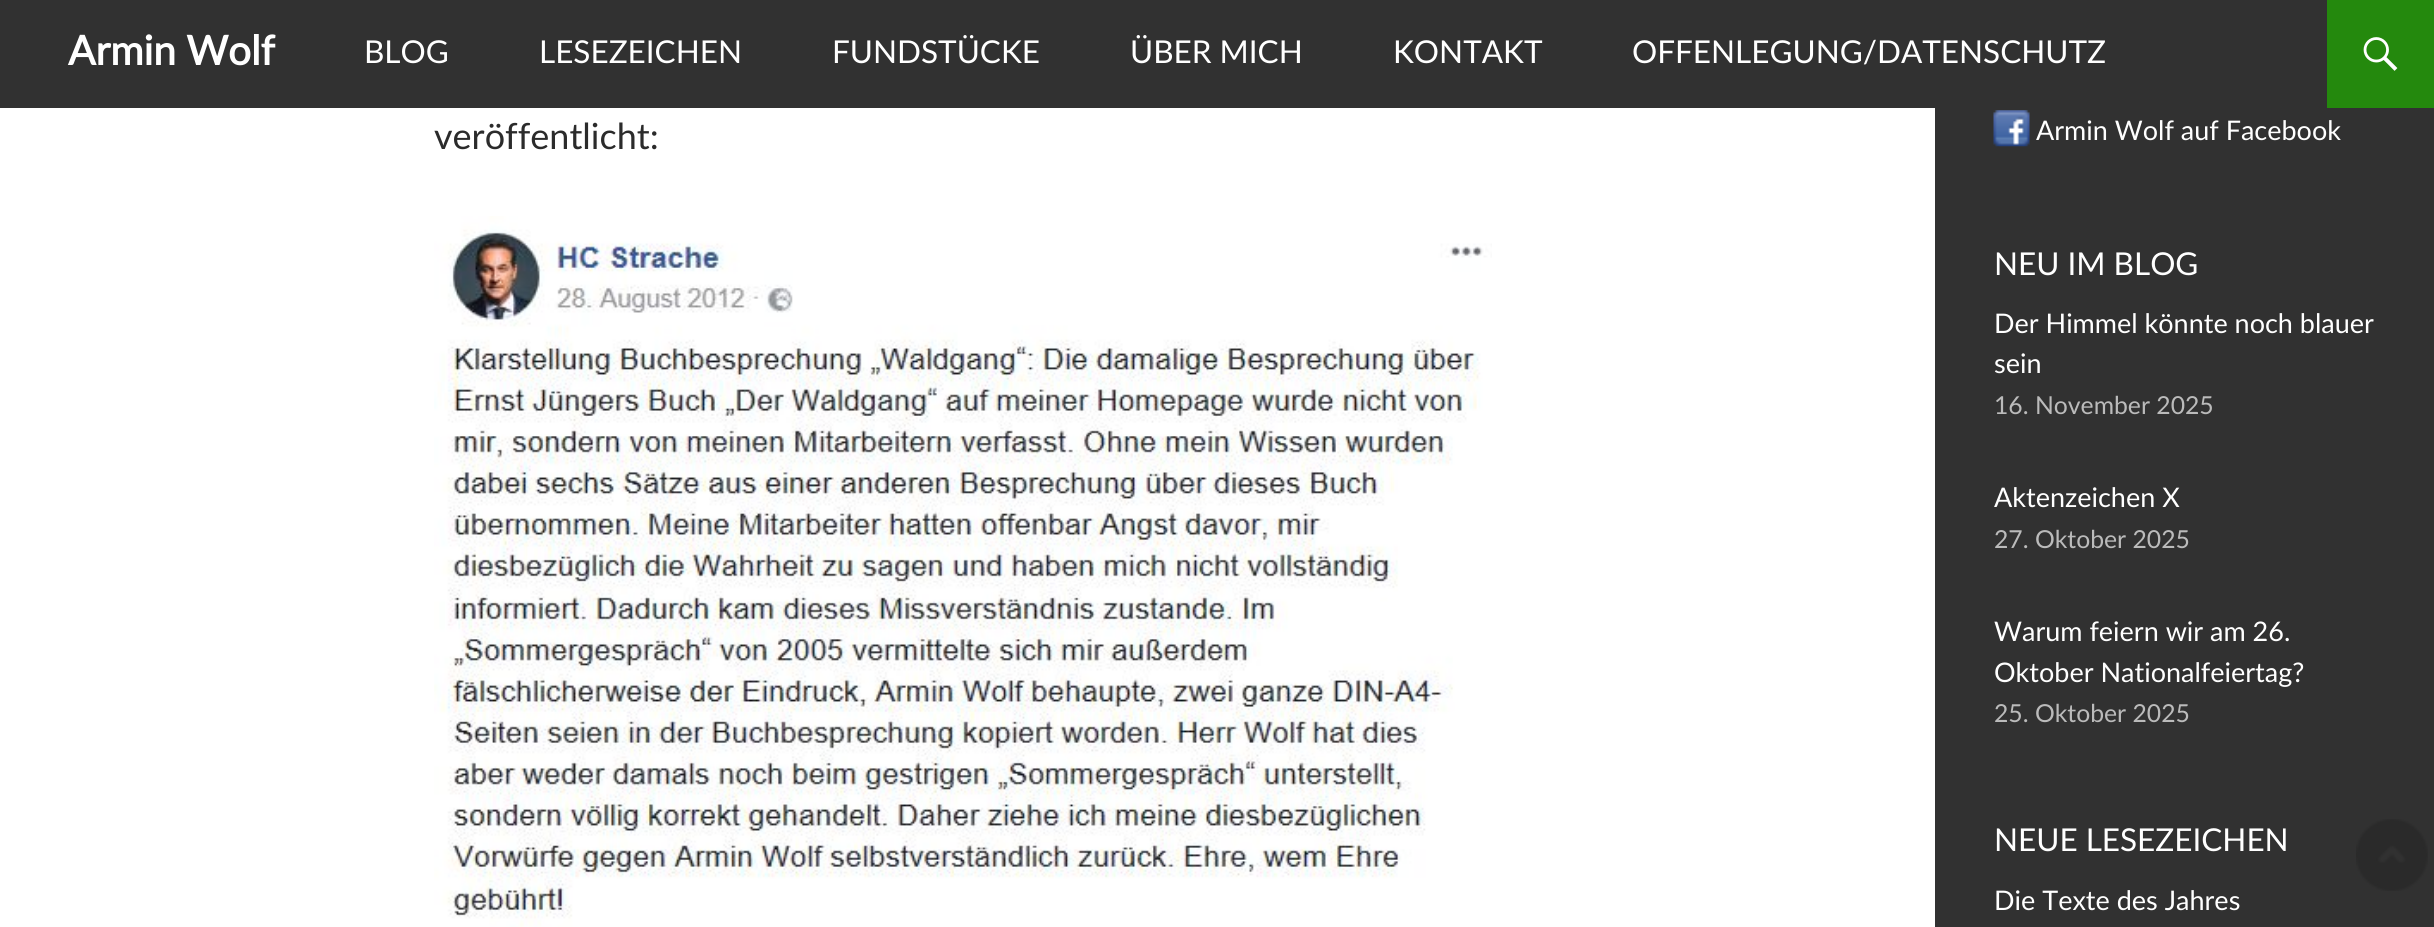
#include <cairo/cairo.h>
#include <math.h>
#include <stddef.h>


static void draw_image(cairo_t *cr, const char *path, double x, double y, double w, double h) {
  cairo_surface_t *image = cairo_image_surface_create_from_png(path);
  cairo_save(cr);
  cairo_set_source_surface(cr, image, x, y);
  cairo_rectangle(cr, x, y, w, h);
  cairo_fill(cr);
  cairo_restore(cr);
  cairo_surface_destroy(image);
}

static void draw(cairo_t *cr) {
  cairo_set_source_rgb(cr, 1, 1, 1);
  cairo_paint(cr);
  cairo_set_source_rgb(cr, 49 / 255.0, 49 / 255.0, 49 / 255.0);
  cairo_rectangle(cr, 0, 0, 2327, 108);
  cairo_fill(cr);
  cairo_set_source_rgb(cr, 36 / 255.0, 137 / 255.0, 13 / 255.0);
  cairo_rectangle(cr, 2327, 0, 107, 108);
  cairo_fill(cr);
  draw_image(cr, "images/1.png", 2363, 37, 35, 34);
  cairo_set_source_rgb(cr, 49 / 255.0, 49 / 255.0, 49 / 255.0);
  cairo_rectangle(cr, 1935, 108, 499, 819);
  cairo_fill(cr);
  draw_image(cr, "images/2.png", 434, 216, 1058, 711);
  draw_image(cr, "images/3.png", 1993, 110, 37, 37);
  draw_image(cr, "images/4.png", 2356, 819, 72, 72);
  cairo_select_font_face(cr, "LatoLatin", CAIRO_FONT_SLANT_NORMAL, CAIRO_FONT_WEIGHT_BOLD);
  cairo_set_font_size(cr, 40.5);
  cairo_set_source_rgb(cr, 1, 1, 1);
  cairo_move_to(cr, 68, 65);
  cairo_show_text(cr, "Armin Wolf");
  cairo_select_font_face(cr, "LatoLatin", CAIRO_FONT_SLANT_NORMAL, CAIRO_FONT_WEIGHT_NORMAL);
  cairo_set_font_size(cr, 31.5);
  cairo_move_to(cr, 364, 63);
  cairo_show_text(cr, "BLOG");
  cairo_move_to(cr, 539, 63);
  cairo_show_text(cr, "LESEZEICHEN");
  cairo_move_to(cr, 832, 63);
  cairo_show_text(cr, "FUNDSTÜCKE");
  cairo_move_to(cr, 1130, 63);
  cairo_show_text(cr, "ÜBER MICH");
  cairo_move_to(cr, 1393, 63);
  cairo_show_text(cr, "KONTAKT");
  cairo_move_to(cr, 1632, 63);
  cairo_show_text(cr, "OFFENLEGUNG/DATENSCHUTZ");
  cairo_set_font_size(cr, 36);
  cairo_set_source_rgb(cr, 43 / 255.0, 43 / 255.0, 43 / 255.0);
  cairo_move_to(cr, 434, 149);
  cairo_show_text(cr, "veröffentlicht:");
  cairo_set_font_size(cr, 27);
  cairo_set_source_rgb(cr, 1, 1, 1);
  cairo_move_to(cr, 2036, 140);
  cairo_show_text(cr, "Armin Wolf auf Facebook");
  cairo_set_font_size(cr, 31.5);
  cairo_move_to(cr, 1994, 275);
  cairo_show_text(cr, "NEU IM BLOG");
  cairo_set_font_size(cr, 27);
  cairo_move_to(cr, 1994, 333);
  cairo_show_text(cr, "Der Himmel könnte noch blauer");
  cairo_move_to(cr, 1994, 373);
  cairo_show_text(cr, "sein");
  cairo_set_font_size(cr, 24.75);
  cairo_set_source_rgb(cr, 187 / 255.0, 187 / 255.0, 187 / 255.0);
  cairo_move_to(cr, 1994, 414);
  cairo_show_text(cr, "16. November 2025");
  cairo_set_font_size(cr, 27);
  cairo_set_source_rgb(cr, 1, 1, 1);
  cairo_move_to(cr, 1994, 507);
  cairo_show_text(cr, "Aktenzeichen X");
  cairo_set_font_size(cr, 24.75);
  cairo_set_source_rgb(cr, 187 / 255.0, 187 / 255.0, 187 / 255.0);
  cairo_move_to(cr, 1994, 548);
  cairo_show_text(cr, "27. Oktober 2025");
  cairo_set_font_size(cr, 27);
  cairo_set_source_rgb(cr, 1, 1, 1);
  cairo_move_to(cr, 1994, 641);
  cairo_show_text(cr, "Warum feiern wir am 26.");
  cairo_move_to(cr, 1994, 682);
  cairo_show_text(cr, "Oktober Nationalfeiertag?");
  cairo_set_font_size(cr, 24.75);
  cairo_set_source_rgb(cr, 187 / 255.0, 187 / 255.0, 187 / 255.0);
  cairo_move_to(cr, 1994, 722);
  cairo_show_text(cr, "25. Oktober 2025");
  cairo_set_font_size(cr, 31.5);
  cairo_set_source_rgb(cr, 1, 1, 1);
  cairo_move_to(cr, 1994, 851);
  cairo_show_text(cr, "NEUE LESEZEICHEN");
  cairo_set_font_size(cr, 27);
  cairo_move_to(cr, 1994, 910);
  cairo_show_text(cr, "Die Texte des Jahres");
}

int main(void) {
  cairo_surface_t *surface = cairo_image_surface_create(CAIRO_FORMAT_RGB24, 2434, 927);
  cairo_t *cr = cairo_create(surface);
  cairo_font_options_t *options = cairo_font_options_create();
  cairo_font_options_set_hint_metrics(options, CAIRO_HINT_METRICS_OFF);
  cairo_font_options_set_hint_style(options, CAIRO_HINT_STYLE_NONE);
  cairo_set_font_options(cr, options);
  cairo_set_miter_limit(cr, 4);
  draw(cr);
  cairo_surface_write_to_png(surface, "out.png");
  cairo_font_options_destroy(options);
  cairo_destroy(cr);
  cairo_surface_destroy(surface);
  return 0;
}
